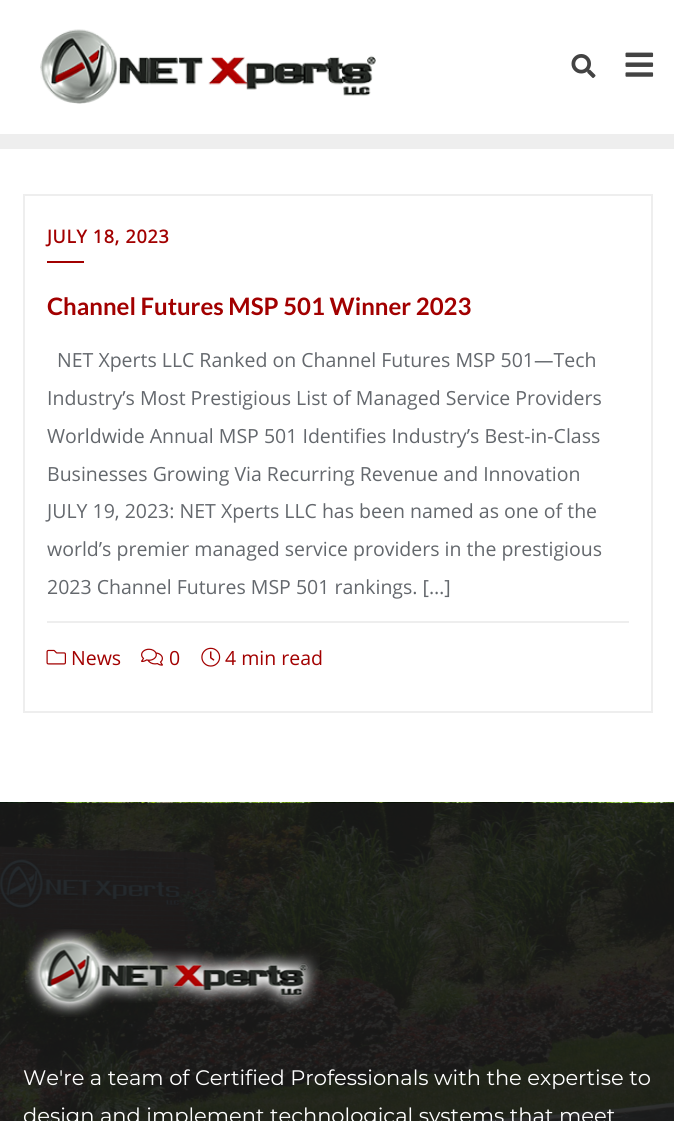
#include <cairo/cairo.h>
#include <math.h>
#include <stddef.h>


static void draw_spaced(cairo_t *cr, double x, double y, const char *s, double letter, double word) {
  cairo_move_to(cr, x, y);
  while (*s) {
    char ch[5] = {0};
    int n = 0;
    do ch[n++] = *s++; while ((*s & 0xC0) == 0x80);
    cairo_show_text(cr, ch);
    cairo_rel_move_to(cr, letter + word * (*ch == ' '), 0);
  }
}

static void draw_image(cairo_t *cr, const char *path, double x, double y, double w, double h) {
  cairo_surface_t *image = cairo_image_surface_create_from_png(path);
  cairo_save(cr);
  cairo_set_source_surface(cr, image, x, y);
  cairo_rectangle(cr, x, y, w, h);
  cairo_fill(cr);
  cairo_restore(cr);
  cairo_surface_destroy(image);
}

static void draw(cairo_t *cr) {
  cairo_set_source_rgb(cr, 1, 1, 1);
  cairo_paint(cr);
  cairo_set_source_rgb(cr, 238 / 255.0, 238 / 255.0, 238 / 255.0);
  cairo_rectangle(cr, 0, 134, 674, 15);
  cairo_fill(cr);
  draw_image(cr, "images/1.png", 40, 29, 336, 75);
  draw_image(cr, "images/2.png", 571, 54, 25, 24);
  draw_image(cr, "images/3.png", 625, 52, 29, 25);
  cairo_rectangle(cr, 24, 195, 628, 517);
  cairo_stroke(cr);
  cairo_set_source_rgb(cr, 162 / 255.0, 0, 0);
  cairo_rectangle(cr, 47, 261, 37, 2);
  cairo_fill(cr);
  cairo_set_source_rgb(cr, 238 / 255.0, 238 / 255.0, 238 / 255.0);
  cairo_rectangle(cr, 47, 621, 582, 2);
  cairo_fill(cr);
  draw_image(cr, "images/4.png", 46, 649, 20, 16);
  draw_image(cr, "images/5.png", 141, 648, 22, 18);
  draw_image(cr, "images/6.png", 201, 647, 20, 20);
  draw_image(cr, "images/7.png", 0, 802, 674, 319);
  draw_image(cr, "images/8.png", 25, 929, 295, 88);
  cairo_select_font_face(cr, "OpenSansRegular", CAIRO_FONT_SLANT_NORMAL, CAIRO_FONT_WEIGHT_BOLD);
  cairo_set_font_size(cr, 18);
  cairo_set_source_rgb(cr, 162 / 255.0, 0, 0);
  draw_spaced(cr, 47, 243, "JULY 18, 2023", 0.75, 0);
  cairo_select_font_face(cr, "Lato", CAIRO_FONT_SLANT_NORMAL, CAIRO_FONT_WEIGHT_BOLD);
  cairo_set_font_size(cr, 24);
  cairo_move_to(cr, 47, 315);
  cairo_show_text(cr, "Channel Futures MSP 501 Winner 2023");
  cairo_select_font_face(cr, "OpenSansRegular", CAIRO_FONT_SLANT_NORMAL, CAIRO_FONT_WEIGHT_NORMAL);
  cairo_set_font_size(cr, 19.5);
  cairo_set_source_rgb(cr, 100 / 255.0, 104 / 255.0, 109 / 255.0);
  cairo_move_to(cr, 57, 367);
  cairo_show_text(cr, "NET Xperts LLC Ranked on Channel Futures MSP 501—Tech");
  cairo_move_to(cr, 47, 405);
  cairo_show_text(cr, "Industry’s Most Prestigious List of Managed Service Providers");
  cairo_move_to(cr, 47, 443);
  cairo_show_text(cr, "Worldwide Annual MSP 501 Identifies Industry’s Best-in-Class");
  cairo_move_to(cr, 47, 481);
  cairo_show_text(cr, "Businesses Growing Via Recurring Revenue and Innovation");
  cairo_move_to(cr, 47, 518);
  cairo_show_text(cr, "JULY 19, 2023: NET Xperts LLC has been named as one of the");
  cairo_move_to(cr, 47, 556);
  cairo_show_text(cr, "world’s premier managed service providers in the prestigious");
  cairo_move_to(cr, 47, 594);
  cairo_show_text(cr, "2023 Channel Futures MSP 501 rankings. […]");
  cairo_set_source_rgb(cr, 162 / 255.0, 0, 0);
  cairo_move_to(cr, 71, 665);
  cairo_show_text(cr, "News");
  cairo_move_to(cr, 169, 665);
  cairo_show_text(cr, "0");
  cairo_move_to(cr, 225, 665);
  cairo_show_text(cr, "4 min read");
  cairo_select_font_face(cr, "Montserrat", CAIRO_FONT_SLANT_NORMAL, CAIRO_FONT_WEIGHT_NORMAL);
  cairo_set_font_size(cr, 21);
  cairo_set_source_rgb(cr, 1, 1, 1);
  cairo_move_to(cr, 23, 1085);
  cairo_show_text(cr, "We're a team of Certified Professionals with the expertise to");
  cairo_move_to(cr, 23, 1123);
  cairo_show_text(cr, "design and implement technological systems that meet");
}

int main(void) {
  cairo_surface_t *surface = cairo_image_surface_create(CAIRO_FORMAT_RGB24, 674, 1121);
  cairo_t *cr = cairo_create(surface);
  cairo_font_options_t *options = cairo_font_options_create();
  cairo_font_options_set_hint_metrics(options, CAIRO_HINT_METRICS_OFF);
  cairo_font_options_set_hint_style(options, CAIRO_HINT_STYLE_NONE);
  cairo_set_font_options(cr, options);
  cairo_set_miter_limit(cr, 4);
  draw(cr);
  cairo_surface_write_to_png(surface, "out.png");
  cairo_font_options_destroy(options);
  cairo_destroy(cr);
  cairo_surface_destroy(surface);
  return 0;
}
